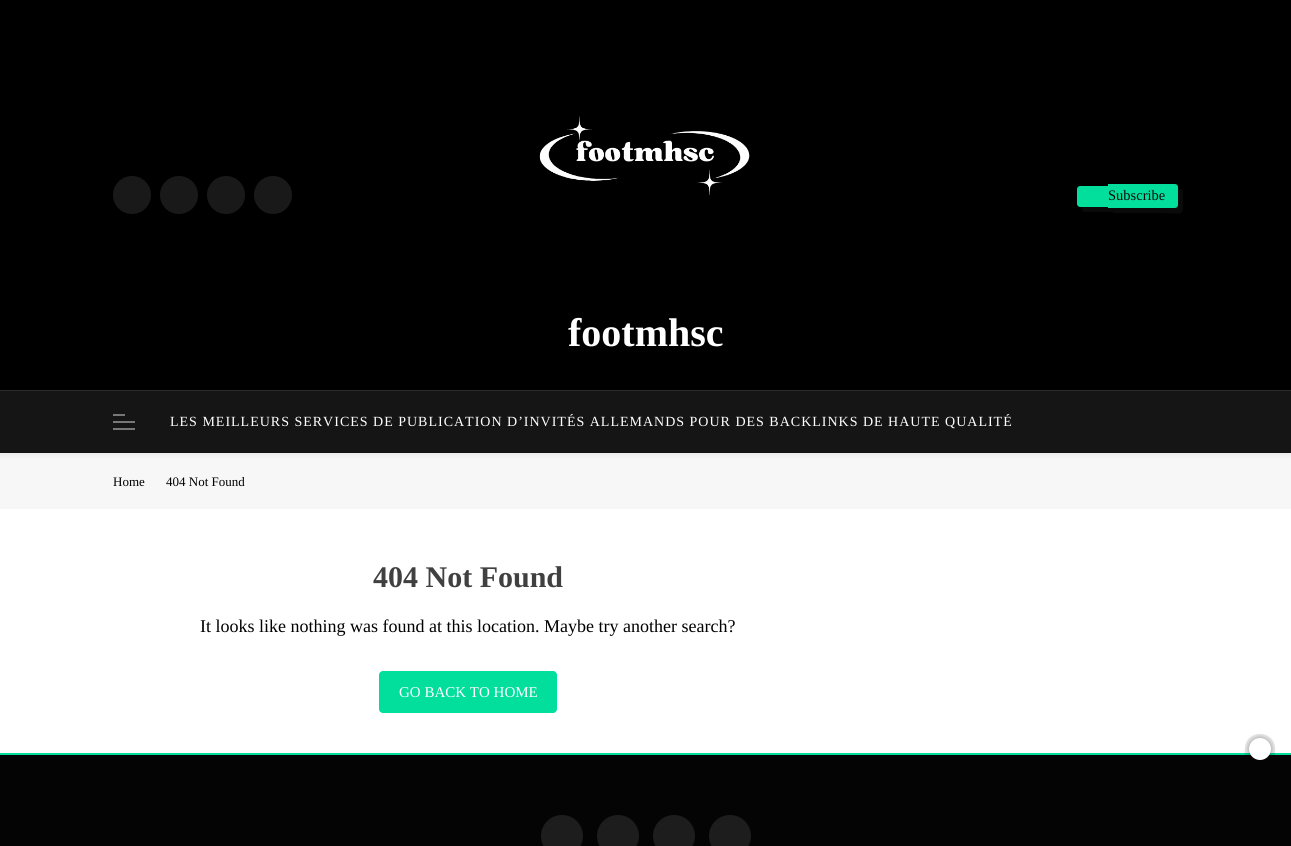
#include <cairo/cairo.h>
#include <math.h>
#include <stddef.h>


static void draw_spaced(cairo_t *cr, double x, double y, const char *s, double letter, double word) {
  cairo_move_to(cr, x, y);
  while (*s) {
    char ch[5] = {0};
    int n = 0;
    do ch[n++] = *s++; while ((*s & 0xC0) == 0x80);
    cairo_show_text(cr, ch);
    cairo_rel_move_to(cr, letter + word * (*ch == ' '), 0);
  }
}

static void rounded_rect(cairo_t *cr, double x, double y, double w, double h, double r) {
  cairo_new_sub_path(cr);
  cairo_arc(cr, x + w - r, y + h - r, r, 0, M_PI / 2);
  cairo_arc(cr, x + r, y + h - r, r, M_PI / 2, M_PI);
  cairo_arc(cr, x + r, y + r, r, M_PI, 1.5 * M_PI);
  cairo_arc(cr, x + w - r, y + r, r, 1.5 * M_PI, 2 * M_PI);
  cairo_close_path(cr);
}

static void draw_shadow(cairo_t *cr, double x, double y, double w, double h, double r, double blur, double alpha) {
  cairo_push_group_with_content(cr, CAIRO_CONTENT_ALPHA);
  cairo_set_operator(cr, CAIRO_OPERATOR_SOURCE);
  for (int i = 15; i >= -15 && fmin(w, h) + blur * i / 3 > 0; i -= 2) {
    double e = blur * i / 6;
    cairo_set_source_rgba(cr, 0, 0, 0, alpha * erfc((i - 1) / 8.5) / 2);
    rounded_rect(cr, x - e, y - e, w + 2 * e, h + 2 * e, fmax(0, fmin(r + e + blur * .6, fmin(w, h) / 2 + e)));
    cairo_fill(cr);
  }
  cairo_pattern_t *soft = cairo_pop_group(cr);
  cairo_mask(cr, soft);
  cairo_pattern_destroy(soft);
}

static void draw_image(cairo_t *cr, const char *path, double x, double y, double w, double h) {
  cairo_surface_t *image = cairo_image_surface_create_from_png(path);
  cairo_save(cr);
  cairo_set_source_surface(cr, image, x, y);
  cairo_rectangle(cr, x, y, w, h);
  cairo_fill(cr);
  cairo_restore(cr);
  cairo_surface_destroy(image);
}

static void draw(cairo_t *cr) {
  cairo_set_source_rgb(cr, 1, 1, 1);
  cairo_paint(cr);
  cairo_set_source_rgb(cr, 247 / 255.0, 247 / 255.0, 247 / 255.0);
  cairo_rectangle(cr, 0, 453, 1291, 56);
  cairo_fill(cr);
  cairo_set_source_rgb(cr, 0, 0, 0);
  draw_shadow(cr, 0, 3, 1291, 453, 0, 2, 0.05);
  cairo_set_source_rgb(cr, 0, 0, 0);
  cairo_rectangle(cr, 0, 0, 1291, 390);
  cairo_fill(cr);
  cairo_set_source_rgb(cr, 25 / 255.0, 25 / 255.0, 25 / 255.0);
  cairo_arc(cr, 132, 195, 19, 0, 2 * M_PI);
  cairo_fill(cr);
  cairo_arc(cr, 179, 195, 19, 0, 2 * M_PI);
  cairo_fill(cr);
  cairo_arc(cr, 226, 195, 19, 0, 2 * M_PI);
  cairo_fill(cr);
  cairo_arc(cr, 273, 195, 19, 0, 2 * M_PI);
  cairo_fill(cr);
  cairo_set_source_rgb(cr, 11 / 255.0, 10 / 255.0, 10 / 255.0);
  cairo_new_path(cr);
  cairo_move_to(cr, 1082, 207);
  cairo_line_to(cr, 1082, 209);
  cairo_curve_to(cr, 1082, 210.5, 1083.5, 212, 1085, 212);
  cairo_line_to(cr, 1113, 212);
  cairo_line_to(cr, 1113, 191);
  cairo_line_to(cr, 1108, 191);
  cairo_line_to(cr, 1108, 207);
  cairo_close_path(cr);
  cairo_fill(cr);
  cairo_set_source_rgb(cr, 2 / 255.0, 222 / 255.0, 156 / 255.0);
  cairo_new_path(cr);
  cairo_move_to(cr, 1080, 186);
  cairo_line_to(cr, 1108, 186);
  cairo_line_to(cr, 1108, 207);
  cairo_line_to(cr, 1080, 207);
  cairo_curve_to(cr, 1078.5, 207, 1077, 205.5, 1077, 204);
  cairo_line_to(cr, 1077, 189);
  cairo_curve_to(cr, 1077, 187.5, 1078.5, 186, 1080, 186);
  cairo_close_path(cr);
  cairo_fill(cr);
  cairo_set_source_rgb(cr, 11 / 255.0, 10 / 255.0, 10 / 255.0);
  cairo_new_path(cr);
  cairo_move_to(cr, 1113, 208);
  cairo_line_to(cr, 1113, 213);
  cairo_line_to(cr, 1158, 213);
  cairo_curve_to(cr, 1186, 213, 1183, 219, 1183, 195);
  cairo_curve_to(cr, 1183, 190, 1183, 189, 1178, 189);
  cairo_line_to(cr, 1178, 205);
  cairo_curve_to(cr, 1178, 207, 1177, 208, 1175, 208);
  cairo_close_path(cr);
  cairo_fill(cr);
  cairo_set_source_rgb(cr, 2 / 255.0, 222 / 255.0, 156 / 255.0);
  cairo_new_path(cr);
  cairo_move_to(cr, 1108, 184);
  cairo_line_to(cr, 1175, 184);
  cairo_curve_to(cr, 1176.5, 184, 1178, 185.5, 1178, 187);
  cairo_line_to(cr, 1178, 205);
  cairo_curve_to(cr, 1178, 206.5, 1176.5, 208, 1175, 208);
  cairo_line_to(cr, 1108, 208);
  cairo_close_path(cr);
  cairo_fill(cr);
  draw_image(cr, "images/1.png", 539, 116, 211, 79);
  cairo_set_source_rgb(cr, 21 / 255.0, 21 / 255.0, 21 / 255.0);
  cairo_rectangle(cr, 0, 391, 1291, 62);
  cairo_fill(cr);
  cairo_set_source_rgb(cr, 44 / 255.0, 44 / 255.0, 44 / 255.0);
  cairo_rectangle(cr, 0, 390, 1291, 1);
  cairo_fill(cr);
  cairo_set_source_rgb(cr, 119 / 255.0, 119 / 255.0, 119 / 255.0);
  cairo_rectangle(cr, 113, 414, 12, 2);
  cairo_fill(cr);
  cairo_rectangle(cr, 113, 421, 22, 2);
  cairo_fill(cr);
  cairo_rectangle(cr, 113, 428, 22, 2);
  cairo_fill(cr);
  cairo_set_source_rgb(cr, 2 / 255.0, 222 / 255.0, 156 / 255.0);
  rounded_rect(cr, 379, 671, 178, 42, 4);
  cairo_fill(cr);
  cairo_rectangle(cr, 0, 753, 1291, 2);
  cairo_fill(cr);
  cairo_set_source_rgb(cr, 4 / 255.0, 4 / 255.0, 4 / 255.0);
  cairo_rectangle(cr, 0, 755, 1291, 91);
  cairo_fill(cr);
  cairo_set_source_rgba(cr, 0, 0, 0, 0.1);
  cairo_new_path(cr);
  cairo_move_to(cr, 1275, 749);
  cairo_line_to(cr, 1275, 773);
  cairo_curve_to(cr, 1274, 789, 1252, 794, 1246, 779);
  cairo_curve_to(cr, 1244, 774, 1244, 755, 1245, 749);
  cairo_curve_to(cr, 1245, 729, 1275, 729, 1275, 749);
  cairo_close_path(cr);
  cairo_fill(cr);
  cairo_set_source_rgb(cr, 0, 0, 0);
  draw_shadow(cr, 1249, 738, 22, 22, 11, 2.5, 0.35);
  cairo_set_source_rgb(cr, 1, 1, 1);
  cairo_arc(cr, 1260, 749, 11, 0, 2 * M_PI);
  cairo_fill(cr);
  cairo_set_source_rgb(cr, 29 / 255.0, 29 / 255.0, 29 / 255.0);
  cairo_arc(cr, 562, 836, 21, 0, 2 * M_PI);
  cairo_fill(cr);
  cairo_arc(cr, 618, 836, 21, 0, 2 * M_PI);
  cairo_fill(cr);
  cairo_arc(cr, 674, 836, 21, 0, 2 * M_PI);
  cairo_fill(cr);
  cairo_arc(cr, 730, 836, 21, 0, 2 * M_PI);
  cairo_fill(cr);
  cairo_select_font_face(cr, "Liberation Serif", CAIRO_FONT_SLANT_NORMAL, CAIRO_FONT_WEIGHT_NORMAL);
  cairo_set_font_size(cr, 14.5);
  cairo_set_source_rgb(cr, 10 / 255.0, 10 / 255.0, 10 / 255.0);
  cairo_move_to(cr, 1108, 200);
  cairo_show_text(cr, "Subscribe");
  cairo_select_font_face(cr, "Liberation Serif", CAIRO_FONT_SLANT_NORMAL, CAIRO_FONT_WEIGHT_BOLD);
  cairo_set_font_size(cr, 40);
  cairo_set_source_rgb(cr, 1, 1, 1);
  cairo_move_to(cr, 568, 346);
  cairo_show_text(cr, "footmhsc");
  cairo_select_font_face(cr, "Liberation Serif", CAIRO_FONT_SLANT_NORMAL, CAIRO_FONT_WEIGHT_NORMAL);
  cairo_set_font_size(cr, 14);
  draw_spaced(cr, 170, 426, "LES MEILLEURS SERVICES DE PUBLICATION D’INVITÉS ALLEMANDS POUR DES BACKLINKS DE HAUTE QUALITÉ", 1, 0);
  cairo_set_font_size(cr, 13);
  cairo_set_source_rgb(cr, 0, 0, 0);
  cairo_move_to(cr, 113, 486);
  cairo_show_text(cr, "Home");
  cairo_move_to(cr, 166, 486);
  cairo_show_text(cr, "404 Not Found");
  cairo_select_font_face(cr, "Liberation Serif", CAIRO_FONT_SLANT_NORMAL, CAIRO_FONT_WEIGHT_BOLD);
  cairo_set_font_size(cr, 30);
  cairo_set_source_rgb(cr, 64 / 255.0, 64 / 255.0, 64 / 255.0);
  cairo_move_to(cr, 373, 587);
  cairo_show_text(cr, "404 Not Found");
  cairo_select_font_face(cr, "Liberation Serif", CAIRO_FONT_SLANT_NORMAL, CAIRO_FONT_WEIGHT_NORMAL);
  cairo_set_font_size(cr, 18);
  cairo_set_source_rgb(cr, 0, 0, 0);
  cairo_move_to(cr, 200, 632);
  cairo_show_text(cr, "It looks like nothing was found at this location. Maybe try another search?");
  cairo_set_font_size(cr, 15);
  cairo_set_source_rgb(cr, 1, 1, 1);
  cairo_move_to(cr, 399, 697);
  cairo_show_text(cr, "GO BACK TO HOME");
}

int main(void) {
  cairo_surface_t *surface = cairo_image_surface_create(CAIRO_FORMAT_RGB24, 1291, 846);
  cairo_t *cr = cairo_create(surface);
  cairo_font_options_t *options = cairo_font_options_create();
  cairo_font_options_set_hint_metrics(options, CAIRO_HINT_METRICS_OFF);
  cairo_font_options_set_hint_style(options, CAIRO_HINT_STYLE_NONE);
  cairo_set_font_options(cr, options);
  cairo_set_miter_limit(cr, 4);
  draw(cr);
  cairo_surface_write_to_png(surface, "out.png");
  cairo_font_options_destroy(options);
  cairo_destroy(cr);
  cairo_surface_destroy(surface);
  return 0;
}
